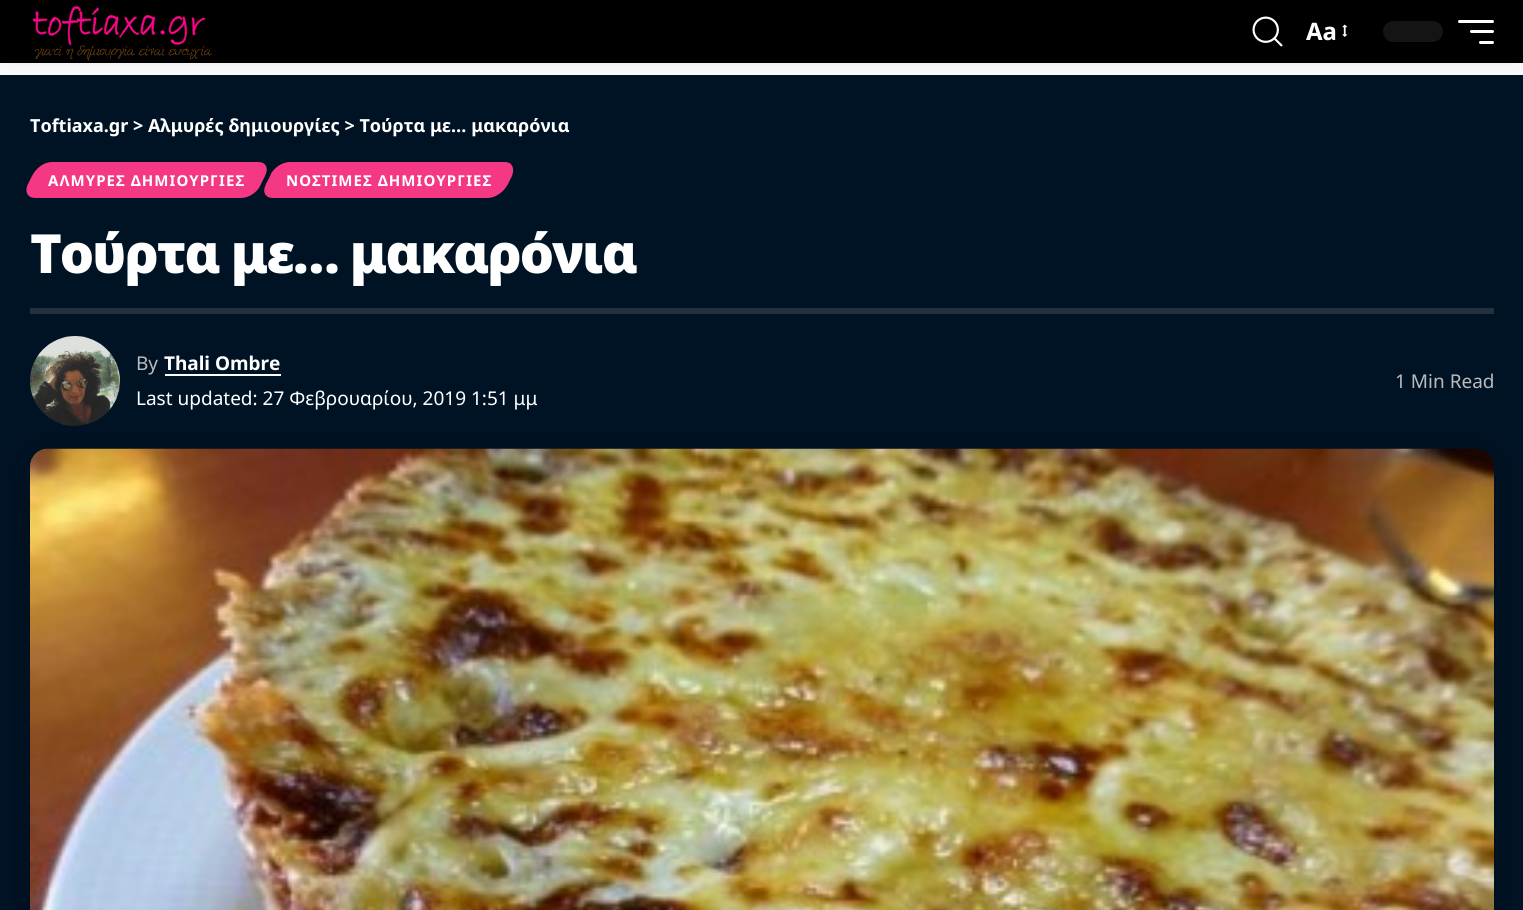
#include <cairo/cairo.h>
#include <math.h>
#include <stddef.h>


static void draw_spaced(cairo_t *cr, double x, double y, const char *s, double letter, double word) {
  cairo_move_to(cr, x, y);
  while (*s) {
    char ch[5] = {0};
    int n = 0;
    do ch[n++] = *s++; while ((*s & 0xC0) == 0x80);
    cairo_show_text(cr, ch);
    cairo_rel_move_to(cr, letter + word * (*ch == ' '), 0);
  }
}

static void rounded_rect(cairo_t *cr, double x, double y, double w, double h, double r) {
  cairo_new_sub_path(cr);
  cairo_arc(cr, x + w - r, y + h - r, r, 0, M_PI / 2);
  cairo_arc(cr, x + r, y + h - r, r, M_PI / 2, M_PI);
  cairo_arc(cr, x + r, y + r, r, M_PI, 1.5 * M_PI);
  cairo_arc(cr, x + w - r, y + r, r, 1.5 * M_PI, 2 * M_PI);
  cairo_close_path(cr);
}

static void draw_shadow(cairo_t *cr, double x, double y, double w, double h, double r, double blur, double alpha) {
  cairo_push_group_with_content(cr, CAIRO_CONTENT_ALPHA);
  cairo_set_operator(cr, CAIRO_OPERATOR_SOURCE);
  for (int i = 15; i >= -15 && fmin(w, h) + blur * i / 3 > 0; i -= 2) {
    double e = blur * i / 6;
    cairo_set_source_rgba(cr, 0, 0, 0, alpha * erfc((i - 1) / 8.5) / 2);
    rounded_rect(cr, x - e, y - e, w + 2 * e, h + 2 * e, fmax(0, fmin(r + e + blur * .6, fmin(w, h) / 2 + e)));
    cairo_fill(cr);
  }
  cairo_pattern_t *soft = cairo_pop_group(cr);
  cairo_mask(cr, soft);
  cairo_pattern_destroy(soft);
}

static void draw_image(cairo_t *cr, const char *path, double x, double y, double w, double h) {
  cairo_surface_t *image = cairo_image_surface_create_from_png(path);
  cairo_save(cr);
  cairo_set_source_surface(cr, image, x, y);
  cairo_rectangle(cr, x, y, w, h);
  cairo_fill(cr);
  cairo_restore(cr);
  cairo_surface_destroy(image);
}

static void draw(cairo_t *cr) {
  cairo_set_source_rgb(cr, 1, 1, 1);
  cairo_paint(cr);
  cairo_set_source_rgb(cr, 0, 19 / 255.0, 37 / 255.0);
  cairo_rectangle(cr, 0, 75, 1523, 835);
  cairo_fill(cr);
  cairo_set_source_rgb(cr, 0, 0, 0);
  draw_shadow(cr, 0, 6, 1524, 63, 0, 22.5, 0.07);
  cairo_set_source_rgb(cr, 0, 0, 0);
  cairo_rectangle(cr, 0, 0, 1523, 63);
  cairo_fill(cr);
  draw_image(cr, "images/1.png", 32, 5, 180, 56);
  draw_image(cr, "images/2.png", 1252, 16, 31, 31);
  draw_image(cr, "images/3.png", 1342, 24, 5, 13);
  cairo_set_source_rgb(cr, 20 / 255.0, 20 / 255.0, 20 / 255.0);
  rounded_rect(cr, 1383, 21, 60, 21, 10.5);
  cairo_fill(cr);
  cairo_set_source_rgb(cr, 1, 1, 1);
  rounded_rect(cr, 1458, 20, 36, 3, 1.5);
  cairo_fill(cr);
  rounded_rect(cr, 1470, 30, 24, 3, 1.5);
  cairo_fill(cr);
  rounded_rect(cr, 1479, 41, 15, 3, 1.5);
  cairo_fill(cr);
  cairo_set_source_rgb(cr, 244 / 255.0, 56 / 255.0, 131 / 255.0);
  cairo_new_path(cr);
  cairo_move_to(cr, 52, 162);
  cairo_line_to(cr, 258, 162);
  cairo_curve_to(cr, 266, 162, 269, 168, 265, 176);
  cairo_line_to(cr, 261, 184);
  cairo_curve_to(cr, 258, 192, 249, 198, 241, 198);
  cairo_line_to(cr, 35, 198);
  cairo_curve_to(cr, 28, 198, 24, 192, 28, 184);
  cairo_line_to(cr, 32, 176);
  cairo_curve_to(cr, 36, 168, 44, 162, 52, 162);
  cairo_close_path(cr);
  cairo_fill(cr);
  cairo_new_path(cr);
  cairo_move_to(cr, 290, 162);
  cairo_line_to(cr, 505, 162);
  cairo_curve_to(cr, 512, 162, 515, 168, 512, 176);
  cairo_line_to(cr, 508, 184);
  cairo_curve_to(cr, 504, 192, 495, 198, 488, 198);
  cairo_line_to(cr, 273, 198);
  cairo_curve_to(cr, 265, 198, 262, 192, 266, 184);
  cairo_line_to(cr, 270, 176);
  cairo_curve_to(cr, 273, 168, 282, 162, 290, 162);
  cairo_close_path(cr);
  cairo_fill(cr);
  cairo_set_source_rgb(cr, 34 / 255.0, 48 / 255.0, 62 / 255.0);
  cairo_rectangle(cr, 30, 308, 1464, 6);
  cairo_fill(cr);
  cairo_set_source_rgb(cr, 0, 0, 0);
  draw_shadow(cr, 30, 455, 1464, 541, 18, 22.5, 0.3);
  draw_image(cr, "images/4.png", 30, 336, 90, 90);
  cairo_set_source_rgb(cr, 1, 1, 1);
  cairo_rectangle(cr, 165, 374, 116, 2);
  cairo_fill(cr);
  draw_image(cr, "images/5.png", 30, 448, 1464, 462);
  cairo_select_font_face(cr, "Noto Sans", CAIRO_FONT_SLANT_NORMAL, CAIRO_FONT_WEIGHT_BOLD);
  cairo_set_font_size(cr, 24);
  cairo_move_to(cr, 1306, 40);
  cairo_show_text(cr, "Aa");
  cairo_set_font_size(cr, 18);
  cairo_move_to(cr, 30, 132);
  cairo_show_text(cr, "Toftiaxa.gr > Αλμυρές δημιουργίες > Τούρτα με… μακαρόνια");
  cairo_set_font_size(cr, 15);
  draw_spaced(cr, 48, 186, "ΑΛΜΥΡΕΣ ΔΗΜΙΟΥΡΓΙΕΣ", 1.05, 0);
  draw_spaced(cr, 286, 186, "ΝΟΣΤΙΜΕΣ ΔΗΜΙΟΥΡΓΙΕΣ", 1.05, 0);
  cairo_select_font_face(cr, "Noto Sans Black", CAIRO_FONT_SLANT_NORMAL, CAIRO_FONT_WEIGHT_NORMAL);
  cairo_set_font_size(cr, 54);
  draw_spaced(cr, 30, 273, "Τούρτα με… μακαρόνια", -2.1, 0);
  cairo_select_font_face(cr, "Noto Sans", CAIRO_FONT_SLANT_NORMAL, CAIRO_FONT_WEIGHT_NORMAL);
  cairo_set_font_size(cr, 19);
  cairo_set_source_rgb(cr, 187 / 255.0, 187 / 255.0, 187 / 255.0);
  cairo_move_to(cr, 136, 370);
  cairo_show_text(cr, "By");
  cairo_select_font_face(cr, "Noto Sans", CAIRO_FONT_SLANT_NORMAL, CAIRO_FONT_WEIGHT_BOLD);
  cairo_set_source_rgb(cr, 1, 1, 1);
  cairo_move_to(cr, 164, 370);
  cairo_show_text(cr, "Thali Ombre");
  cairo_select_font_face(cr, "Noto Sans", CAIRO_FONT_SLANT_NORMAL, CAIRO_FONT_WEIGHT_NORMAL);
  cairo_move_to(cr, 136, 405);
  cairo_show_text(cr, "Last updated: 27 Φεβρουαρίου, 2019 1:51 μμ");
  cairo_set_source_rgb(cr, 187 / 255.0, 187 / 255.0, 187 / 255.0);
  cairo_move_to(cr, 1395, 388);
  cairo_show_text(cr, "1 Min Read");
}

int main(void) {
  cairo_surface_t *surface = cairo_image_surface_create(CAIRO_FORMAT_RGB24, 1523, 910);
  cairo_t *cr = cairo_create(surface);
  cairo_font_options_t *options = cairo_font_options_create();
  cairo_font_options_set_hint_metrics(options, CAIRO_HINT_METRICS_OFF);
  cairo_font_options_set_hint_style(options, CAIRO_HINT_STYLE_NONE);
  cairo_set_font_options(cr, options);
  cairo_set_miter_limit(cr, 4);
  draw(cr);
  cairo_surface_write_to_png(surface, "out.png");
  cairo_font_options_destroy(options);
  cairo_destroy(cr);
  cairo_surface_destroy(surface);
  return 0;
}
